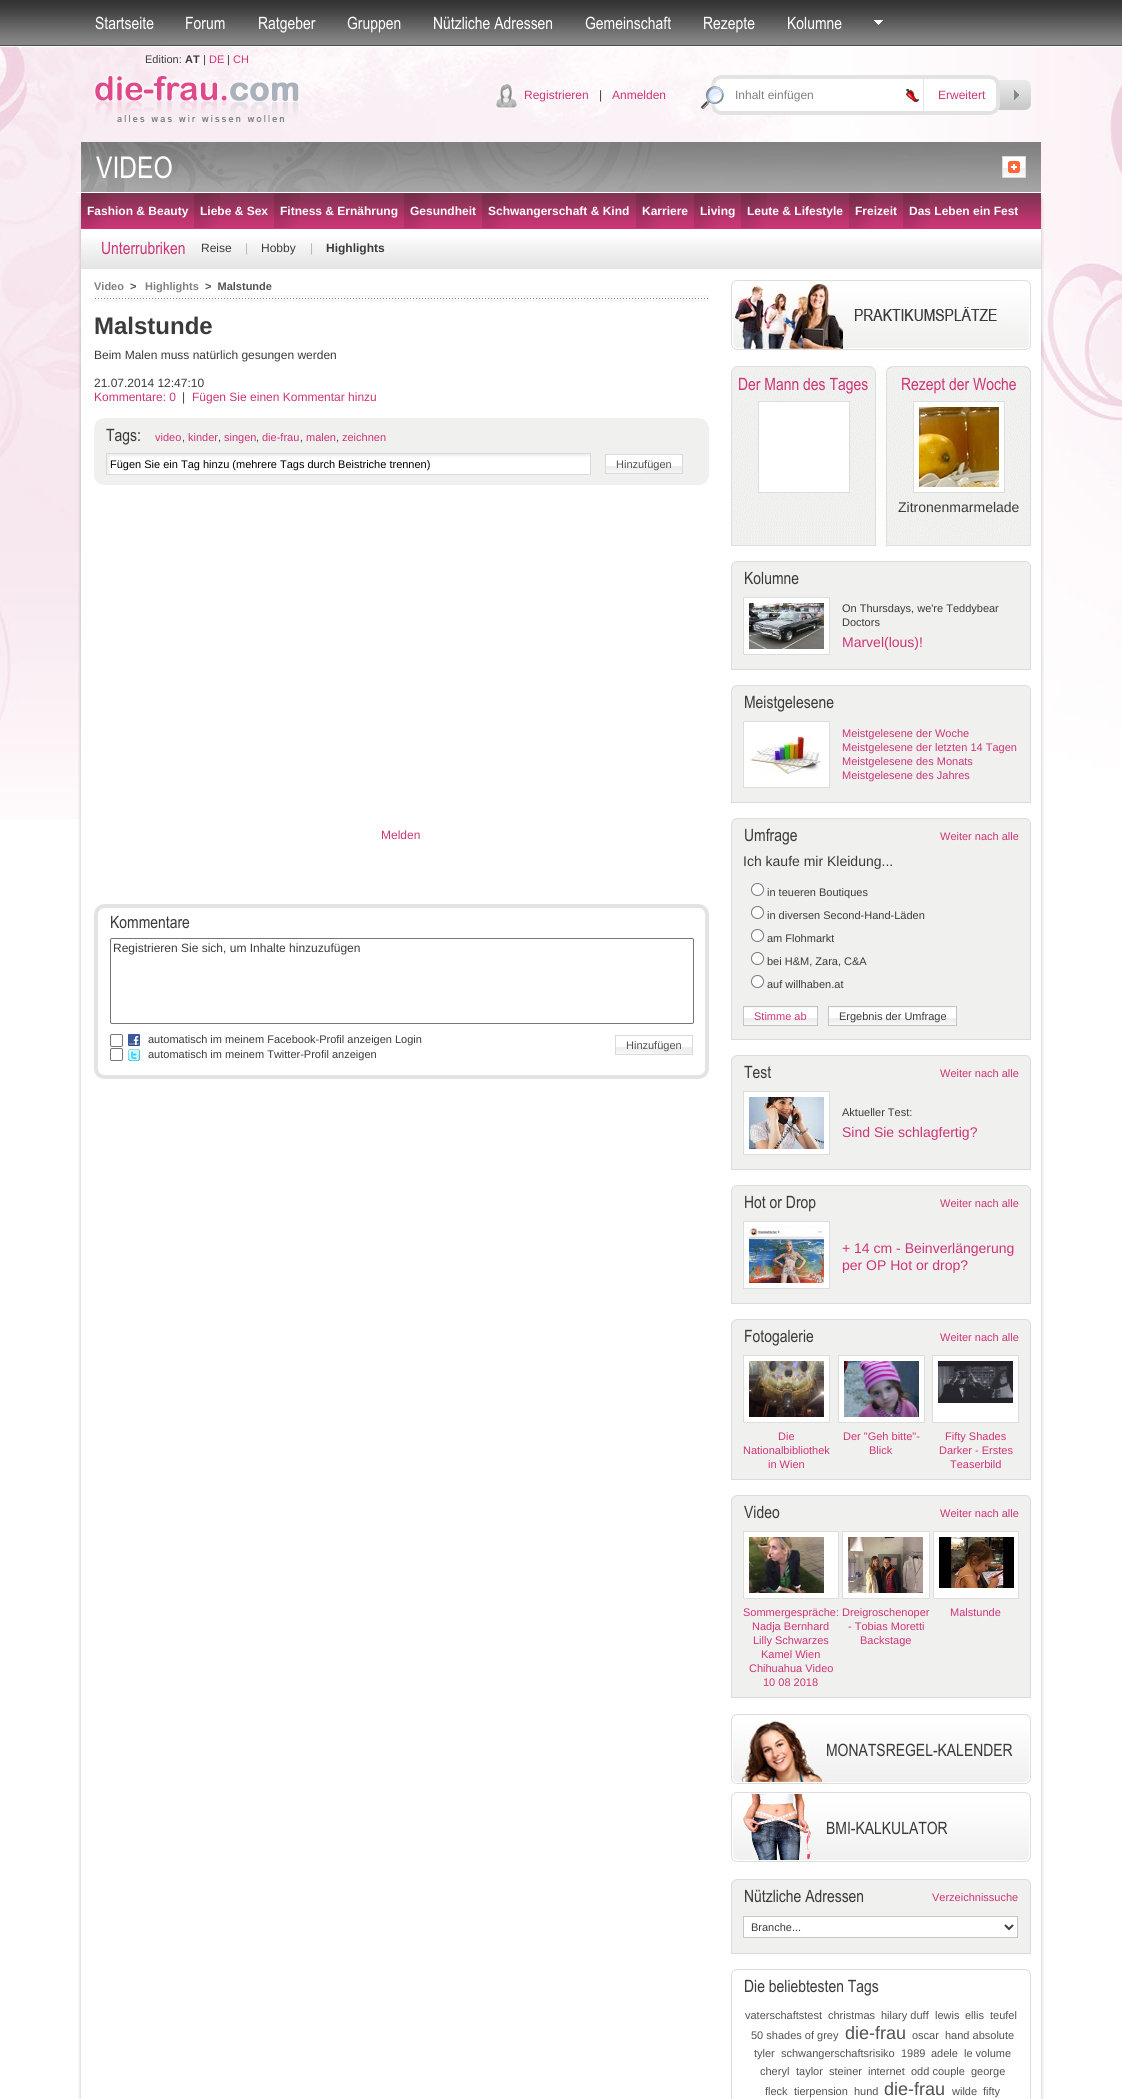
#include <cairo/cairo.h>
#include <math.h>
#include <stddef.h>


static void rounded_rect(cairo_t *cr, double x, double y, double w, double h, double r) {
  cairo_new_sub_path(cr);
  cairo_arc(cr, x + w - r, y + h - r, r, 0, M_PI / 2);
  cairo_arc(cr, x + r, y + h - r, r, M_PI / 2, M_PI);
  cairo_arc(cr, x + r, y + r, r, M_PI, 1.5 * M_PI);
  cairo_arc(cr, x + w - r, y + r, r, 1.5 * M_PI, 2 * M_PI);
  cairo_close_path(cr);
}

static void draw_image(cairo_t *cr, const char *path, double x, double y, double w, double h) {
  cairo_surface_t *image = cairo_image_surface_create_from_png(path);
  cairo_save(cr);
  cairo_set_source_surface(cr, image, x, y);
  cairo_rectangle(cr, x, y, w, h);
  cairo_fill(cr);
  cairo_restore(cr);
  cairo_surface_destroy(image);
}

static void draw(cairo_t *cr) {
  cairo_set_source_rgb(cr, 1, 1, 1);
  cairo_paint(cr);
  draw_image(cr, "images/1.png", 0, 47, 1122, 772);
  draw_image(cr, "images/2.png", 0, 0, 1122, 47);
  draw_image(cr, "images/3.png", 874, 20, 9, 5);
  draw_image(cr, "images/4.png", 93, 74, 207, 48);
  draw_image(cr, "images/5.png", 496, 83, 21, 26);
  draw_image(cr, "images/6.png", 701, 75, 330, 40);
  draw_image(cr, "images/7.png", 906, 89, 13, 13);
  cairo_set_source_rgb(cr, 227 / 255.0, 227 / 255.0, 227 / 255.0);
  cairo_rectangle(cr, 923, 75, 1, 40);
  cairo_fill(cr);
  draw_image(cr, "images/8.png", 1014, 90, 5, 10);
  draw_image(cr, "images/9.png", 81, 142, 960, 50);
  draw_image(cr, "images/10.png", 1003, 157, 22, 20);
  cairo_rectangle(cr, 1002.5, 156.5, 23, 21);
  cairo_set_source_rgb(cr, 218 / 255.0, 218 / 255.0, 218 / 255.0);
  cairo_set_line_width(cr, 1);
  cairo_stroke(cr);
  draw_image(cr, "images/11.png", 1008, 161, 12, 12);
  draw_image(cr, "images/12.png", 78, 195, 966, 34);
  cairo_set_source_rgb(cr, 1, 1, 1);
  cairo_rectangle(cr, 76, 192, 970, 1);
  cairo_fill(cr);
  draw_image(cr, "images/13.png", 81, 193, 960, 36);
  draw_image(cr, "images/14.png", 81, 193, 26, 35);
  draw_image(cr, "images/15.png", 194, 193, 26, 35);
  draw_image(cr, "images/15.png", 274, 193, 26, 35);
  draw_image(cr, "images/15.png", 404, 193, 26, 35);
  draw_image(cr, "images/16.png", 482, 193, 27, 35);
  draw_image(cr, "images/15.png", 636, 193, 26, 35);
  draw_image(cr, "images/17.png", 694, 193, 26, 35);
  draw_image(cr, "images/15.png", 741, 193, 26, 35);
  draw_image(cr, "images/15.png", 849, 193, 26, 35);
  draw_image(cr, "images/16.png", 903, 193, 27, 35);
  draw_image(cr, "images/18.png", 78, 229, 966, 1870);
  draw_image(cr, "images/19.png", 81, 238, 960, 31);
  draw_image(cr, "images/20.png", 94, 295, 615, 7);
  draw_image(cr, "images/21.png", 94, 418, 615, 57);
  draw_image(cr, "images/22.png", 107, 454, 483, 20);
  cairo_rectangle(cr, 106.5, 453.5, 484, 21);
  cairo_set_source_rgb(cr, 218 / 255.0, 218 / 255.0, 218 / 255.0);
  cairo_stroke(cr);
  draw_image(cr, "images/23.png", 606, 455, 76, 18);
  cairo_rectangle(cr, 605.5, 454.5, 77, 19);
  cairo_stroke(cr);
  draw_image(cr, "images/24.png", 94, 475, 615, 10);
  draw_image(cr, "images/25.png", 94, 904, 615, 175);
  rounded_rect(cr, 110.5, 938.5, 583, 85, 1.5);
  cairo_set_source_rgb(cr, 118 / 255.0, 118 / 255.0, 118 / 255.0);
  cairo_stroke(cr);
  rounded_rect(cr, 110.5, 1034.5, 12, 12, 1.5);
  cairo_stroke(cr);
  draw_image(cr, "images/26.png", 128, 1034, 12, 12);
  rounded_rect(cr, 110.5, 1048.5, 12, 12, 1.5);
  cairo_stroke(cr);
  draw_image(cr, "images/27.png", 128, 1049, 12, 12);
  draw_image(cr, "images/28.png", 616, 1047, 76, 7);
  cairo_rectangle(cr, 615.5, 1035.5, 77, 19);
  cairo_set_source_rgb(cr, 218 / 255.0, 218 / 255.0, 218 / 255.0);
  cairo_stroke(cr);
  draw_image(cr, "images/29.png", 731, 279, 300, 72);
  draw_image(cr, "images/30.png", 731, 366, 300, 180);
  cairo_set_source_rgb(cr, 1, 1, 1);
  cairo_rectangle(cr, 758.5, 401.5, 91, 91);
  cairo_fill_preserve(cr);
  cairo_set_source_rgb(cr, 221 / 255.0, 221 / 255.0, 221 / 255.0);
  cairo_stroke(cr);
  cairo_set_source_rgb(cr, 1, 1, 1);
  cairo_rectangle(cr, 913.5, 401.5, 91, 91);
  cairo_fill_preserve(cr);
  cairo_set_source_rgb(cr, 221 / 255.0, 221 / 255.0, 221 / 255.0);
  cairo_stroke(cr);
  draw_image(cr, "images/31.png", 919, 407, 80, 80);
  draw_image(cr, "images/32.png", 731, 561, 300, 108);
  cairo_set_source_rgb(cr, 218 / 255.0, 218 / 255.0, 218 / 255.0);
  cairo_rectangle(cr, 731, 669, 300, 1);
  cairo_fill(cr);
  cairo_set_source_rgb(cr, 1, 1, 1);
  cairo_rectangle(cr, 743.5, 597.5, 86, 57);
  cairo_fill_preserve(cr);
  cairo_set_source_rgb(cr, 221 / 255.0, 221 / 255.0, 221 / 255.0);
  cairo_stroke(cr);
  draw_image(cr, "images/33.png", 749, 603, 75, 46);
  draw_image(cr, "images/34.png", 731, 685, 300, 117);
  cairo_set_source_rgb(cr, 218 / 255.0, 218 / 255.0, 218 / 255.0);
  cairo_rectangle(cr, 731, 802, 300, 1);
  cairo_fill(cr);
  cairo_set_source_rgb(cr, 1, 1, 1);
  cairo_rectangle(cr, 743.5, 721.5, 86, 66);
  cairo_fill_preserve(cr);
  cairo_set_source_rgb(cr, 221 / 255.0, 221 / 255.0, 221 / 255.0);
  cairo_stroke(cr);
  draw_image(cr, "images/35.png", 750, 735, 71, 40);
  draw_image(cr, "images/36.png", 731, 818, 300, 221);
  cairo_set_source_rgb(cr, 218 / 255.0, 218 / 255.0, 218 / 255.0);
  cairo_rectangle(cr, 731, 1039, 300, 1);
  cairo_fill(cr);
  cairo_set_source_rgb(cr, 1, 1, 1);
  cairo_arc(cr, 757.5, 889.5, 6, 0, 2 * M_PI);
  cairo_fill_preserve(cr);
  cairo_set_source_rgb(cr, 118 / 255.0, 118 / 255.0, 118 / 255.0);
  cairo_stroke(cr);
  cairo_set_source_rgb(cr, 1, 1, 1);
  cairo_arc(cr, 757.5, 912.5, 6, 0, 2 * M_PI);
  cairo_fill_preserve(cr);
  cairo_set_source_rgb(cr, 118 / 255.0, 118 / 255.0, 118 / 255.0);
  cairo_stroke(cr);
  cairo_set_source_rgb(cr, 1, 1, 1);
  cairo_arc(cr, 757.5, 935.5, 6, 0, 2 * M_PI);
  cairo_fill_preserve(cr);
  cairo_set_source_rgb(cr, 118 / 255.0, 118 / 255.0, 118 / 255.0);
  cairo_stroke(cr);
  cairo_set_source_rgb(cr, 1, 1, 1);
  cairo_arc(cr, 757.5, 958.5, 6, 0, 2 * M_PI);
  cairo_fill_preserve(cr);
  cairo_set_source_rgb(cr, 118 / 255.0, 118 / 255.0, 118 / 255.0);
  cairo_stroke(cr);
  cairo_set_source_rgb(cr, 1, 1, 1);
  cairo_arc(cr, 757.5, 981.5, 6, 0, 2 * M_PI);
  cairo_fill_preserve(cr);
  cairo_set_source_rgb(cr, 118 / 255.0, 118 / 255.0, 118 / 255.0);
  cairo_stroke(cr);
  draw_image(cr, "images/37.png", 744, 1007, 73, 18);
  cairo_rectangle(cr, 743.5, 1006.5, 74, 19);
  cairo_set_source_rgb(cr, 196 / 255.0, 196 / 255.0, 196 / 255.0);
  cairo_stroke(cr);
  draw_image(cr, "images/38.png", 829, 1007, 127, 18);
  cairo_rectangle(cr, 828.5, 1006.5, 128, 19);
  cairo_stroke(cr);
  draw_image(cr, "images/39.png", 731, 1055, 300, 114);
  cairo_set_source_rgb(cr, 218 / 255.0, 218 / 255.0, 218 / 255.0);
  cairo_rectangle(cr, 731, 1169, 300, 1);
  cairo_fill(cr);
  cairo_set_source_rgb(cr, 1, 1, 1);
  cairo_rectangle(cr, 743.5, 1091.5, 86, 63);
  cairo_fill_preserve(cr);
  cairo_set_source_rgb(cr, 221 / 255.0, 221 / 255.0, 221 / 255.0);
  cairo_stroke(cr);
  draw_image(cr, "images/40.png", 749, 1097, 75, 52);
  draw_image(cr, "images/41.png", 731, 1185, 300, 118);
  cairo_set_source_rgb(cr, 218 / 255.0, 218 / 255.0, 218 / 255.0);
  cairo_rectangle(cr, 731, 1303, 300, 1);
  cairo_fill(cr);
  cairo_set_source_rgb(cr, 1, 1, 1);
  cairo_rectangle(cr, 743.5, 1221.5, 86, 67);
  cairo_fill_preserve(cr);
  cairo_set_source_rgb(cr, 221 / 255.0, 221 / 255.0, 221 / 255.0);
  cairo_stroke(cr);
  draw_image(cr, "images/42.png", 749, 1227, 75, 56);
  draw_image(cr, "images/43.png", 731, 1319, 300, 160);
  cairo_set_source_rgb(cr, 218 / 255.0, 218 / 255.0, 218 / 255.0);
  cairo_rectangle(cr, 731, 1479, 300, 1);
  cairo_fill(cr);
  cairo_set_source_rgb(cr, 1, 1, 1);
  cairo_rectangle(cr, 743.5, 1355.5, 86, 67);
  cairo_fill_preserve(cr);
  cairo_set_source_rgb(cr, 221 / 255.0, 221 / 255.0, 221 / 255.0);
  cairo_stroke(cr);
  draw_image(cr, "images/44.png", 749, 1361, 75, 56);
  cairo_set_source_rgb(cr, 1, 1, 1);
  cairo_rectangle(cr, 838.5, 1355.5, 86, 67);
  cairo_fill_preserve(cr);
  cairo_set_source_rgb(cr, 221 / 255.0, 221 / 255.0, 221 / 255.0);
  cairo_stroke(cr);
  draw_image(cr, "images/45.png", 844, 1361, 75, 56);
  cairo_set_source_rgb(cr, 1, 1, 1);
  cairo_rectangle(cr, 932.5, 1355.5, 86, 67);
  cairo_fill_preserve(cr);
  cairo_set_source_rgb(cr, 221 / 255.0, 221 / 255.0, 221 / 255.0);
  cairo_stroke(cr);
  draw_image(cr, "images/46.png", 938, 1361, 75, 42);
  draw_image(cr, "images/47.png", 731, 1495, 300, 202);
  cairo_set_source_rgb(cr, 218 / 255.0, 218 / 255.0, 218 / 255.0);
  cairo_rectangle(cr, 731, 1697, 300, 1);
  cairo_fill(cr);
  cairo_set_source_rgb(cr, 1, 1, 1);
  cairo_rectangle(cr, 743.5, 1531.5, 95, 67);
  cairo_fill_preserve(cr);
  cairo_set_source_rgb(cr, 221 / 255.0, 221 / 255.0, 221 / 255.0);
  cairo_stroke(cr);
  draw_image(cr, "images/48.png", 749, 1537, 75, 56);
  cairo_set_source_rgb(cr, 1, 1, 1);
  cairo_rectangle(cr, 933.5, 1531.5, 85, 67);
  cairo_fill_preserve(cr);
  cairo_set_source_rgb(cr, 221 / 255.0, 221 / 255.0, 221 / 255.0);
  cairo_stroke(cr);
  draw_image(cr, "images/49.png", 939, 1537, 75, 51);
  cairo_set_source_rgb(cr, 1, 1, 1);
  cairo_rectangle(cr, 842.5, 1531.5, 87, 67);
  cairo_fill_preserve(cr);
  cairo_set_source_rgb(cr, 221 / 255.0, 221 / 255.0, 221 / 255.0);
  cairo_stroke(cr);
  draw_image(cr, "images/50.png", 848, 1537, 75, 56);
  draw_image(cr, "images/51.png", 731, 1714, 300, 70);
  draw_image(cr, "images/52.png", 731, 1792, 300, 70);
  draw_image(cr, "images/53.png", 731, 1879, 300, 74);
  cairo_set_source_rgb(cr, 218 / 255.0, 218 / 255.0, 218 / 255.0);
  cairo_rectangle(cr, 731, 1953, 300, 1);
  cairo_fill(cr);
  cairo_set_source_rgb(cr, 1, 1, 1);
  cairo_rectangle(cr, 743.5, 1916.5, 274, 21);
  cairo_fill_preserve(cr);
  cairo_set_source_rgb(cr, 199 / 255.0, 199 / 255.0, 199 / 255.0);
  cairo_stroke(cr);
  cairo_new_path(cr);
  cairo_move_to(cr, 1005, 1925);
  cairo_line_to(cr, 1009, 1929);
  cairo_line_to(cr, 1013, 1925);
  cairo_set_source_rgb(cr, 60 / 255.0, 59 / 255.0, 59 / 255.0);
  cairo_set_line_width(cr, 2);
  cairo_stroke(cr);
  draw_image(cr, "images/54.png", 731, 1969, 300, 130);
  cairo_select_font_face(cr, "Arial", CAIRO_FONT_SLANT_NORMAL, CAIRO_FONT_WEIGHT_NORMAL);
  cairo_set_font_size(cr, 17);
  cairo_set_source_rgb(cr, 1, 1, 1);
  cairo_move_to(cr, 95, 29);
  cairo_show_text(cr, "Startseite");
  cairo_move_to(cr, 185, 29);
  cairo_show_text(cr, "Forum");
  cairo_move_to(cr, 258, 29);
  cairo_show_text(cr, "Ratgeber");
  cairo_move_to(cr, 347, 29);
  cairo_show_text(cr, "Gruppen");
  cairo_move_to(cr, 433, 29);
  cairo_show_text(cr, "Nützliche Adressen");
  cairo_move_to(cr, 585, 29);
  cairo_show_text(cr, "Gemeinschaft");
  cairo_move_to(cr, 703, 29);
  cairo_show_text(cr, "Rezepte");
  cairo_move_to(cr, 787, 29);
  cairo_show_text(cr, "Kolumne");
  cairo_select_font_face(cr, "Liberation Sans", CAIRO_FONT_SLANT_NORMAL, CAIRO_FONT_WEIGHT_NORMAL);
  cairo_set_font_size(cr, 11);
  cairo_set_source_rgb(cr, 60 / 255.0, 59 / 255.0, 59 / 255.0);
  cairo_move_to(cr, 145, 63);
  cairo_show_text(cr, "Edition:");
  cairo_select_font_face(cr, "Liberation Sans", CAIRO_FONT_SLANT_NORMAL, CAIRO_FONT_WEIGHT_BOLD);
  cairo_move_to(cr, 185, 63);
  cairo_show_text(cr, "AT");
  cairo_select_font_face(cr, "Liberation Sans", CAIRO_FONT_SLANT_NORMAL, CAIRO_FONT_WEIGHT_NORMAL);
  cairo_move_to(cr, 203, 63);
  cairo_show_text(cr, "|");
  cairo_set_source_rgb(cr, 205 / 255.0, 53 / 255.0, 119 / 255.0);
  cairo_move_to(cr, 209, 63);
  cairo_show_text(cr, "DE");
  cairo_set_source_rgb(cr, 60 / 255.0, 59 / 255.0, 59 / 255.0);
  cairo_move_to(cr, 227, 63);
  cairo_show_text(cr, "|");
  cairo_set_source_rgb(cr, 205 / 255.0, 53 / 255.0, 119 / 255.0);
  cairo_move_to(cr, 233, 63);
  cairo_show_text(cr, "CH");
  cairo_set_font_size(cr, 12);
  cairo_move_to(cr, 524, 99);
  cairo_show_text(cr, "Registrieren");
  cairo_set_source_rgb(cr, 60 / 255.0, 59 / 255.0, 59 / 255.0);
  cairo_move_to(cr, 599, 99);
  cairo_show_text(cr, "|");
  cairo_set_source_rgb(cr, 205 / 255.0, 53 / 255.0, 119 / 255.0);
  cairo_move_to(cr, 612, 99);
  cairo_show_text(cr, "Anmelden");
  cairo_set_source_rgb(cr, 128 / 255.0, 128 / 255.0, 128 / 255.0);
  cairo_move_to(cr, 735, 99);
  cairo_show_text(cr, "Inhalt einfügen");
  cairo_set_source_rgb(cr, 205 / 255.0, 53 / 255.0, 119 / 255.0);
  cairo_move_to(cr, 938, 99);
  cairo_show_text(cr, "Erweitert");
  cairo_select_font_face(cr, "Arial", CAIRO_FONT_SLANT_NORMAL, CAIRO_FONT_WEIGHT_NORMAL);
  cairo_set_font_size(cr, 30);
  cairo_set_source_rgb(cr, 1, 1, 1);
  cairo_move_to(cr, 96, 178);
  cairo_show_text(cr, "VIDEO");
  cairo_select_font_face(cr, "Liberation Sans", CAIRO_FONT_SLANT_NORMAL, CAIRO_FONT_WEIGHT_BOLD);
  cairo_set_font_size(cr, 12);
  cairo_move_to(cr, 87, 215);
  cairo_show_text(cr, "Fashion & Beauty");
  cairo_move_to(cr, 200, 215);
  cairo_show_text(cr, "Liebe & Sex");
  cairo_move_to(cr, 280, 215);
  cairo_show_text(cr, "Fitness & Ernährung");
  cairo_move_to(cr, 410, 215);
  cairo_show_text(cr, "Gesundheit");
  cairo_move_to(cr, 488, 215);
  cairo_show_text(cr, "Schwangerschaft & Kind");
  cairo_move_to(cr, 642, 215);
  cairo_show_text(cr, "Karriere");
  cairo_move_to(cr, 700, 215);
  cairo_show_text(cr, "Living");
  cairo_move_to(cr, 747, 215);
  cairo_show_text(cr, "Leute & Lifestyle");
  cairo_move_to(cr, 855, 215);
  cairo_show_text(cr, "Freizeit");
  cairo_move_to(cr, 909, 215);
  cairo_show_text(cr, "Das Leben ein Fest");
  cairo_select_font_face(cr, "Arial", CAIRO_FONT_SLANT_NORMAL, CAIRO_FONT_WEIGHT_NORMAL);
  cairo_set_font_size(cr, 17);
  cairo_set_source_rgb(cr, 205 / 255.0, 53 / 255.0, 119 / 255.0);
  cairo_move_to(cr, 101, 254);
  cairo_show_text(cr, "Unterrubriken");
  cairo_select_font_face(cr, "Liberation Sans", CAIRO_FONT_SLANT_NORMAL, CAIRO_FONT_WEIGHT_NORMAL);
  cairo_set_font_size(cr, 12);
  cairo_set_source_rgb(cr, 60 / 255.0, 59 / 255.0, 59 / 255.0);
  cairo_move_to(cr, 201, 252);
  cairo_show_text(cr, "Reise");
  cairo_set_source_rgb(cr, 181 / 255.0, 181 / 255.0, 181 / 255.0);
  cairo_move_to(cr, 245, 252);
  cairo_show_text(cr, "|");
  cairo_set_source_rgb(cr, 60 / 255.0, 59 / 255.0, 59 / 255.0);
  cairo_move_to(cr, 261, 252);
  cairo_show_text(cr, "Hobby");
  cairo_set_source_rgb(cr, 181 / 255.0, 181 / 255.0, 181 / 255.0);
  cairo_move_to(cr, 310, 252);
  cairo_show_text(cr, "|");
  cairo_select_font_face(cr, "Liberation Sans", CAIRO_FONT_SLANT_NORMAL, CAIRO_FONT_WEIGHT_BOLD);
  cairo_set_source_rgb(cr, 60 / 255.0, 59 / 255.0, 59 / 255.0);
  cairo_move_to(cr, 326, 252);
  cairo_show_text(cr, "Highlights");
  cairo_set_font_size(cr, 11);
  cairo_set_source_rgb(cr, 128 / 255.0, 128 / 255.0, 128 / 255.0);
  cairo_move_to(cr, 94, 290);
  cairo_show_text(cr, "Video");
  cairo_set_source_rgb(cr, 81 / 255.0, 81 / 255.0, 81 / 255.0);
  cairo_move_to(cr, 130, 290);
  cairo_show_text(cr, ">");
  cairo_set_source_rgb(cr, 128 / 255.0, 128 / 255.0, 128 / 255.0);
  cairo_move_to(cr, 145, 290);
  cairo_show_text(cr, "Highlights");
  cairo_set_source_rgb(cr, 81 / 255.0, 81 / 255.0, 81 / 255.0);
  cairo_move_to(cr, 205, 290);
  cairo_show_text(cr, ">  Malstunde");
  cairo_set_font_size(cr, 24);
  cairo_set_source_rgb(cr, 60 / 255.0, 59 / 255.0, 59 / 255.0);
  cairo_move_to(cr, 94, 334);
  cairo_show_text(cr, "Malstunde");
  cairo_select_font_face(cr, "Liberation Sans", CAIRO_FONT_SLANT_NORMAL, CAIRO_FONT_WEIGHT_NORMAL);
  cairo_set_font_size(cr, 12);
  cairo_move_to(cr, 94, 359);
  cairo_show_text(cr, "Beim Malen muss natürlich gesungen werden");
  cairo_move_to(cr, 94, 387);
  cairo_show_text(cr, "21.07.2014 12:47:10");
  cairo_set_source_rgb(cr, 205 / 255.0, 53 / 255.0, 119 / 255.0);
  cairo_move_to(cr, 94, 401);
  cairo_show_text(cr, "Kommentare: 0");
  cairo_set_source_rgb(cr, 60 / 255.0, 59 / 255.0, 59 / 255.0);
  cairo_move_to(cr, 182, 401);
  cairo_show_text(cr, "|");
  cairo_set_source_rgb(cr, 205 / 255.0, 53 / 255.0, 119 / 255.0);
  cairo_move_to(cr, 192, 401);
  cairo_show_text(cr, "Fügen Sie einen Kommentar hinzu");
  cairo_select_font_face(cr, "Arial", CAIRO_FONT_SLANT_NORMAL, CAIRO_FONT_WEIGHT_NORMAL);
  cairo_set_font_size(cr, 17);
  cairo_set_source_rgb(cr, 60 / 255.0, 59 / 255.0, 59 / 255.0);
  cairo_move_to(cr, 106, 441);
  cairo_show_text(cr, "Tags:");
  cairo_select_font_face(cr, "Liberation Sans", CAIRO_FONT_SLANT_NORMAL, CAIRO_FONT_WEIGHT_NORMAL);
  cairo_set_font_size(cr, 11);
  cairo_set_source_rgb(cr, 205 / 255.0, 53 / 255.0, 119 / 255.0);
  cairo_move_to(cr, 155, 441);
  cairo_show_text(cr, "video");
  cairo_set_source_rgb(cr, 60 / 255.0, 59 / 255.0, 59 / 255.0);
  cairo_move_to(cr, 182, 441);
  cairo_show_text(cr, ",");
  cairo_set_source_rgb(cr, 205 / 255.0, 53 / 255.0, 119 / 255.0);
  cairo_move_to(cr, 188, 441);
  cairo_show_text(cr, "kinder");
  cairo_set_source_rgb(cr, 60 / 255.0, 59 / 255.0, 59 / 255.0);
  cairo_move_to(cr, 218, 441);
  cairo_show_text(cr, ",");
  cairo_set_source_rgb(cr, 205 / 255.0, 53 / 255.0, 119 / 255.0);
  cairo_move_to(cr, 224, 441);
  cairo_show_text(cr, "singen");
  cairo_set_source_rgb(cr, 60 / 255.0, 59 / 255.0, 59 / 255.0);
  cairo_move_to(cr, 256, 441);
  cairo_show_text(cr, ",");
  cairo_set_source_rgb(cr, 205 / 255.0, 53 / 255.0, 119 / 255.0);
  cairo_move_to(cr, 262, 441);
  cairo_show_text(cr, "die-frau");
  cairo_set_source_rgb(cr, 60 / 255.0, 59 / 255.0, 59 / 255.0);
  cairo_move_to(cr, 300, 441);
  cairo_show_text(cr, ",");
  cairo_set_source_rgb(cr, 205 / 255.0, 53 / 255.0, 119 / 255.0);
  cairo_move_to(cr, 306, 441);
  cairo_show_text(cr, "malen");
  cairo_set_source_rgb(cr, 60 / 255.0, 59 / 255.0, 59 / 255.0);
  cairo_move_to(cr, 336, 441);
  cairo_show_text(cr, ",");
  cairo_set_source_rgb(cr, 205 / 255.0, 53 / 255.0, 119 / 255.0);
  cairo_move_to(cr, 342, 441);
  cairo_show_text(cr, "zeichnen");
  cairo_set_source_rgb(cr, 0, 0, 0);
  cairo_move_to(cr, 110, 468);
  cairo_show_text(cr, "Fügen Sie ein Tag hinzu (mehrere Tags durch Beistriche trennen)");
  cairo_set_source_rgb(cr, 81 / 255.0, 81 / 255.0, 81 / 255.0);
  cairo_move_to(cr, 616, 468);
  cairo_show_text(cr, "Hinzufügen");
  cairo_set_font_size(cr, 12);
  cairo_set_source_rgb(cr, 205 / 255.0, 53 / 255.0, 119 / 255.0);
  cairo_move_to(cr, 381, 839);
  cairo_show_text(cr, "Melden");
  cairo_select_font_face(cr, "Arial", CAIRO_FONT_SLANT_NORMAL, CAIRO_FONT_WEIGHT_NORMAL);
  cairo_set_font_size(cr, 17);
  cairo_set_source_rgb(cr, 60 / 255.0, 59 / 255.0, 59 / 255.0);
  cairo_move_to(cr, 110, 928);
  cairo_show_text(cr, "Kommentare");
  cairo_select_font_face(cr, "Liberation Sans", CAIRO_FONT_SLANT_NORMAL, CAIRO_FONT_WEIGHT_NORMAL);
  cairo_set_font_size(cr, 12);
  cairo_move_to(cr, 113, 952);
  cairo_show_text(cr, "Registrieren Sie sich, um Inhalte hinzuzufügen");
  cairo_set_font_size(cr, 11);
  cairo_move_to(cr, 148, 1043);
  cairo_show_text(cr, "automatisch im meinem Facebook-Profil anzeigen Login");
  cairo_move_to(cr, 148, 1058);
  cairo_show_text(cr, "automatisch im meinem Twitter-Profil anzeigen");
  cairo_set_source_rgb(cr, 81 / 255.0, 81 / 255.0, 81 / 255.0);
  cairo_move_to(cr, 626, 1049);
  cairo_show_text(cr, "Hinzufügen");
  cairo_select_font_face(cr, "Arial", CAIRO_FONT_SLANT_NORMAL, CAIRO_FONT_WEIGHT_NORMAL);
  cairo_set_font_size(cr, 17);
  cairo_set_source_rgb(cr, 205 / 255.0, 53 / 255.0, 119 / 255.0);
  cairo_move_to(cr, 738, 390);
  cairo_show_text(cr, "Der Mann des Tages");
  cairo_move_to(cr, 901, 390);
  cairo_show_text(cr, "Rezept der Woche");
  cairo_select_font_face(cr, "Liberation Sans", CAIRO_FONT_SLANT_NORMAL, CAIRO_FONT_WEIGHT_NORMAL);
  cairo_set_font_size(cr, 14);
  cairo_set_source_rgb(cr, 60 / 255.0, 59 / 255.0, 59 / 255.0);
  cairo_move_to(cr, 898, 512);
  cairo_show_text(cr, "Zitronenmarmelade");
  cairo_select_font_face(cr, "Arial", CAIRO_FONT_SLANT_NORMAL, CAIRO_FONT_WEIGHT_NORMAL);
  cairo_set_font_size(cr, 17);
  cairo_move_to(cr, 744, 584);
  cairo_show_text(cr, "Kolumne");
  cairo_select_font_face(cr, "Liberation Sans", CAIRO_FONT_SLANT_NORMAL, CAIRO_FONT_WEIGHT_NORMAL);
  cairo_set_font_size(cr, 11);
  cairo_move_to(cr, 842, 612);
  cairo_show_text(cr, "On Thursdays, we're Teddybear");
  cairo_move_to(cr, 842, 626);
  cairo_show_text(cr, "Doctors");
  cairo_set_font_size(cr, 14);
  cairo_set_source_rgb(cr, 205 / 255.0, 53 / 255.0, 119 / 255.0);
  cairo_move_to(cr, 842, 647);
  cairo_show_text(cr, "Marvel(lous)!");
  cairo_select_font_face(cr, "Arial", CAIRO_FONT_SLANT_NORMAL, CAIRO_FONT_WEIGHT_NORMAL);
  cairo_set_font_size(cr, 17);
  cairo_set_source_rgb(cr, 60 / 255.0, 59 / 255.0, 59 / 255.0);
  cairo_move_to(cr, 744, 708);
  cairo_show_text(cr, "Meistgelesene");
  cairo_select_font_face(cr, "Liberation Sans", CAIRO_FONT_SLANT_NORMAL, CAIRO_FONT_WEIGHT_NORMAL);
  cairo_set_font_size(cr, 11);
  cairo_set_source_rgb(cr, 205 / 255.0, 53 / 255.0, 119 / 255.0);
  cairo_move_to(cr, 842, 737);
  cairo_show_text(cr, "Meistgelesene der Woche");
  cairo_move_to(cr, 842, 751);
  cairo_show_text(cr, "Meistgelesene der letzten 14 Tagen");
  cairo_move_to(cr, 842, 765);
  cairo_show_text(cr, "Meistgelesene des Monats");
  cairo_move_to(cr, 842, 779);
  cairo_show_text(cr, "Meistgelesene des Jahres");
  cairo_select_font_face(cr, "Arial", CAIRO_FONT_SLANT_NORMAL, CAIRO_FONT_WEIGHT_NORMAL);
  cairo_set_font_size(cr, 17);
  cairo_set_source_rgb(cr, 60 / 255.0, 59 / 255.0, 59 / 255.0);
  cairo_move_to(cr, 744, 841);
  cairo_show_text(cr, "Umfrage");
  cairo_select_font_face(cr, "Liberation Sans", CAIRO_FONT_SLANT_NORMAL, CAIRO_FONT_WEIGHT_NORMAL);
  cairo_set_font_size(cr, 11);
  cairo_set_source_rgb(cr, 205 / 255.0, 53 / 255.0, 119 / 255.0);
  cairo_move_to(cr, 940, 840);
  cairo_show_text(cr, "Weiter nach alle");
  cairo_set_font_size(cr, 14);
  cairo_set_source_rgb(cr, 60 / 255.0, 59 / 255.0, 59 / 255.0);
  cairo_move_to(cr, 743, 866);
  cairo_show_text(cr, "Ich kaufe mir Kleidung...");
  cairo_set_font_size(cr, 11);
  cairo_move_to(cr, 767, 896);
  cairo_show_text(cr, "in teueren Boutiques");
  cairo_move_to(cr, 767, 919);
  cairo_show_text(cr, "in diversen Second-Hand-Läden");
  cairo_move_to(cr, 767, 942);
  cairo_show_text(cr, "am Flohmarkt");
  cairo_move_to(cr, 767, 965);
  cairo_show_text(cr, "bei H&M, Zara, C&A");
  cairo_move_to(cr, 767, 988);
  cairo_show_text(cr, "auf willhaben.at");
  cairo_set_source_rgb(cr, 205 / 255.0, 53 / 255.0, 119 / 255.0);
  cairo_move_to(cr, 754, 1020);
  cairo_show_text(cr, "Stimme ab");
  cairo_set_source_rgb(cr, 60 / 255.0, 59 / 255.0, 59 / 255.0);
  cairo_move_to(cr, 839, 1020);
  cairo_show_text(cr, "Ergebnis der Umfrage");
  cairo_select_font_face(cr, "Arial", CAIRO_FONT_SLANT_NORMAL, CAIRO_FONT_WEIGHT_NORMAL);
  cairo_set_font_size(cr, 17);
  cairo_move_to(cr, 744, 1078);
  cairo_show_text(cr, "Test");
  cairo_select_font_face(cr, "Liberation Sans", CAIRO_FONT_SLANT_NORMAL, CAIRO_FONT_WEIGHT_NORMAL);
  cairo_set_font_size(cr, 11);
  cairo_set_source_rgb(cr, 205 / 255.0, 53 / 255.0, 119 / 255.0);
  cairo_move_to(cr, 940, 1077);
  cairo_show_text(cr, "Weiter nach alle");
  cairo_set_source_rgb(cr, 60 / 255.0, 59 / 255.0, 59 / 255.0);
  cairo_move_to(cr, 842, 1116);
  cairo_show_text(cr, "Aktueller Test:");
  cairo_set_font_size(cr, 14);
  cairo_set_source_rgb(cr, 205 / 255.0, 53 / 255.0, 119 / 255.0);
  cairo_move_to(cr, 842, 1137);
  cairo_show_text(cr, "Sind Sie schlagfertig?");
  cairo_select_font_face(cr, "Arial", CAIRO_FONT_SLANT_NORMAL, CAIRO_FONT_WEIGHT_NORMAL);
  cairo_set_font_size(cr, 17);
  cairo_set_source_rgb(cr, 60 / 255.0, 59 / 255.0, 59 / 255.0);
  cairo_move_to(cr, 744, 1208);
  cairo_show_text(cr, "Hot or Drop");
  cairo_select_font_face(cr, "Liberation Sans", CAIRO_FONT_SLANT_NORMAL, CAIRO_FONT_WEIGHT_NORMAL);
  cairo_set_font_size(cr, 11);
  cairo_set_source_rgb(cr, 205 / 255.0, 53 / 255.0, 119 / 255.0);
  cairo_move_to(cr, 940, 1207);
  cairo_show_text(cr, "Weiter nach alle");
  cairo_set_font_size(cr, 14);
  cairo_move_to(cr, 842, 1253);
  cairo_show_text(cr, "+ 14 cm - Beinverlängerung");
  cairo_move_to(cr, 842, 1270);
  cairo_show_text(cr, "per OP Hot or drop?");
  cairo_select_font_face(cr, "Arial", CAIRO_FONT_SLANT_NORMAL, CAIRO_FONT_WEIGHT_NORMAL);
  cairo_set_font_size(cr, 17);
  cairo_set_source_rgb(cr, 60 / 255.0, 59 / 255.0, 59 / 255.0);
  cairo_move_to(cr, 744, 1342);
  cairo_show_text(cr, "Fotogalerie");
  cairo_select_font_face(cr, "Liberation Sans", CAIRO_FONT_SLANT_NORMAL, CAIRO_FONT_WEIGHT_NORMAL);
  cairo_set_font_size(cr, 11);
  cairo_set_source_rgb(cr, 205 / 255.0, 53 / 255.0, 119 / 255.0);
  cairo_move_to(cr, 940, 1341);
  cairo_show_text(cr, "Weiter nach alle");
  cairo_move_to(cr, 778, 1440);
  cairo_show_text(cr, "Die");
  cairo_move_to(cr, 743, 1454);
  cairo_show_text(cr, "Nationalbibliothek");
  cairo_move_to(cr, 768, 1468);
  cairo_show_text(cr, "in Wien");
  cairo_move_to(cr, 843, 1440);
  cairo_show_text(cr, "Der \"Geh bitte\"-");
  cairo_move_to(cr, 869, 1454);
  cairo_show_text(cr, "Blick");
  cairo_move_to(cr, 945, 1440);
  cairo_show_text(cr, "Fifty Shades");
  cairo_move_to(cr, 939, 1454);
  cairo_show_text(cr, "Darker - Erstes");
  cairo_move_to(cr, 950, 1468);
  cairo_show_text(cr, "Teaserbild");
  cairo_select_font_face(cr, "Arial", CAIRO_FONT_SLANT_NORMAL, CAIRO_FONT_WEIGHT_NORMAL);
  cairo_set_font_size(cr, 17);
  cairo_set_source_rgb(cr, 60 / 255.0, 59 / 255.0, 59 / 255.0);
  cairo_move_to(cr, 744, 1518);
  cairo_show_text(cr, "Video");
  cairo_select_font_face(cr, "Liberation Sans", CAIRO_FONT_SLANT_NORMAL, CAIRO_FONT_WEIGHT_NORMAL);
  cairo_set_font_size(cr, 11);
  cairo_set_source_rgb(cr, 205 / 255.0, 53 / 255.0, 119 / 255.0);
  cairo_move_to(cr, 940, 1517);
  cairo_show_text(cr, "Weiter nach alle");
  cairo_move_to(cr, 743, 1616);
  cairo_show_text(cr, "Sommergespräche: Dreigroschenoper");
  cairo_move_to(cr, 752, 1630);
  cairo_show_text(cr, "Nadja Bernhard");
  cairo_move_to(cr, 753, 1644);
  cairo_show_text(cr, "Lilly Schwarzes");
  cairo_move_to(cr, 761, 1658);
  cairo_show_text(cr, "Kamel Wien");
  cairo_move_to(cr, 749, 1672);
  cairo_show_text(cr, "Chihuahua Video");
  cairo_move_to(cr, 763, 1686);
  cairo_show_text(cr, "10 08 2018");
  cairo_move_to(cr, 950, 1616);
  cairo_show_text(cr, "Malstunde");
  cairo_move_to(cr, 848, 1630);
  cairo_show_text(cr, "- Tobias Moretti");
  cairo_move_to(cr, 860, 1644);
  cairo_show_text(cr, "Backstage");
  cairo_select_font_face(cr, "Arial", CAIRO_FONT_SLANT_NORMAL, CAIRO_FONT_WEIGHT_NORMAL);
  cairo_set_font_size(cr, 17);
  cairo_set_source_rgb(cr, 60 / 255.0, 59 / 255.0, 59 / 255.0);
  cairo_move_to(cr, 826, 1756);
  cairo_show_text(cr, "MONATSREGEL-KALENDER");
  cairo_move_to(cr, 826, 1834);
  cairo_show_text(cr, "BMI-KALKULATOR");
  cairo_move_to(cr, 744, 1902);
  cairo_show_text(cr, "Nützliche Adressen");
  cairo_select_font_face(cr, "Liberation Sans", CAIRO_FONT_SLANT_NORMAL, CAIRO_FONT_WEIGHT_NORMAL);
  cairo_set_font_size(cr, 11);
  cairo_set_source_rgb(cr, 205 / 255.0, 53 / 255.0, 119 / 255.0);
  cairo_move_to(cr, 932, 1901);
  cairo_show_text(cr, "Verzeichnissuche");
  cairo_set_source_rgb(cr, 60 / 255.0, 59 / 255.0, 59 / 255.0);
  cairo_move_to(cr, 751, 1931);
  cairo_show_text(cr, "Branche...");
  cairo_select_font_face(cr, "Arial", CAIRO_FONT_SLANT_NORMAL, CAIRO_FONT_WEIGHT_NORMAL);
  cairo_set_font_size(cr, 17);
  cairo_move_to(cr, 744, 1992);
  cairo_show_text(cr, "Die beliebtesten Tags");
  cairo_select_font_face(cr, "Liberation Sans", CAIRO_FONT_SLANT_NORMAL, CAIRO_FONT_WEIGHT_NORMAL);
  cairo_set_font_size(cr, 11);
  cairo_set_source_rgb(cr, 81 / 255.0, 81 / 255.0, 81 / 255.0);
  cairo_move_to(cr, 745, 2019);
  cairo_show_text(cr, "vaterschaftstest");
  cairo_move_to(cr, 828, 2019);
  cairo_show_text(cr, "christmas");
  cairo_move_to(cr, 881, 2019);
  cairo_show_text(cr, "hilary duff");
  cairo_move_to(cr, 935, 2019);
  cairo_show_text(cr, "lewis");
  cairo_move_to(cr, 965, 2019);
  cairo_show_text(cr, "ellis");
  cairo_move_to(cr, 990, 2019);
  cairo_show_text(cr, "teufel");
  cairo_move_to(cr, 751, 2039);
  cairo_show_text(cr, "50 shades of grey");
  cairo_set_font_size(cr, 18);
  cairo_move_to(cr, 845, 2039);
  cairo_show_text(cr, "die-frau");
  cairo_set_font_size(cr, 11);
  cairo_move_to(cr, 912, 2039);
  cairo_show_text(cr, "oscar");
  cairo_move_to(cr, 945, 2039);
  cairo_show_text(cr, "hand absolute");
  cairo_move_to(cr, 754, 2057);
  cairo_show_text(cr, "tyler");
  cairo_move_to(cr, 781, 2057);
  cairo_show_text(cr, "schwangerschaftsrisiko");
  cairo_move_to(cr, 901, 2057);
  cairo_show_text(cr, "1989");
  cairo_move_to(cr, 931, 2057);
  cairo_show_text(cr, "adele");
  cairo_move_to(cr, 964, 2057);
  cairo_show_text(cr, "le volume");
  cairo_move_to(cr, 760, 2075);
  cairo_show_text(cr, "cheryl");
  cairo_move_to(cr, 796, 2075);
  cairo_show_text(cr, "taylor");
  cairo_move_to(cr, 829, 2075);
  cairo_show_text(cr, "steiner");
  cairo_move_to(cr, 868, 2075);
  cairo_show_text(cr, "internet");
  cairo_move_to(cr, 911, 2075);
  cairo_show_text(cr, "odd couple");
  cairo_move_to(cr, 971, 2075);
  cairo_show_text(cr, "george");
  cairo_move_to(cr, 765, 2095);
  cairo_show_text(cr, "fleck");
  cairo_move_to(cr, 794, 2095);
  cairo_show_text(cr, "tierpension");
  cairo_move_to(cr, 854, 2095);
  cairo_show_text(cr, "hund");
  cairo_set_font_size(cr, 18);
  cairo_move_to(cr, 884, 2095);
  cairo_show_text(cr, "die-frau");
  cairo_set_font_size(cr, 11);
  cairo_move_to(cr, 952, 2095);
  cairo_show_text(cr, "wilde");
  cairo_move_to(cr, 983, 2095);
  cairo_show_text(cr, "fifty");
}

int main(void) {
  cairo_surface_t *surface = cairo_image_surface_create(CAIRO_FORMAT_RGB24, 1122, 2099);
  cairo_t *cr = cairo_create(surface);
  cairo_font_options_t *options = cairo_font_options_create();
  cairo_font_options_set_hint_metrics(options, CAIRO_HINT_METRICS_OFF);
  cairo_font_options_set_hint_style(options, CAIRO_HINT_STYLE_NONE);
  cairo_set_font_options(cr, options);
  cairo_set_miter_limit(cr, 4);
  draw(cr);
  cairo_surface_write_to_png(surface, "out.png");
  cairo_font_options_destroy(options);
  cairo_destroy(cr);
  cairo_surface_destroy(surface);
  return 0;
}
